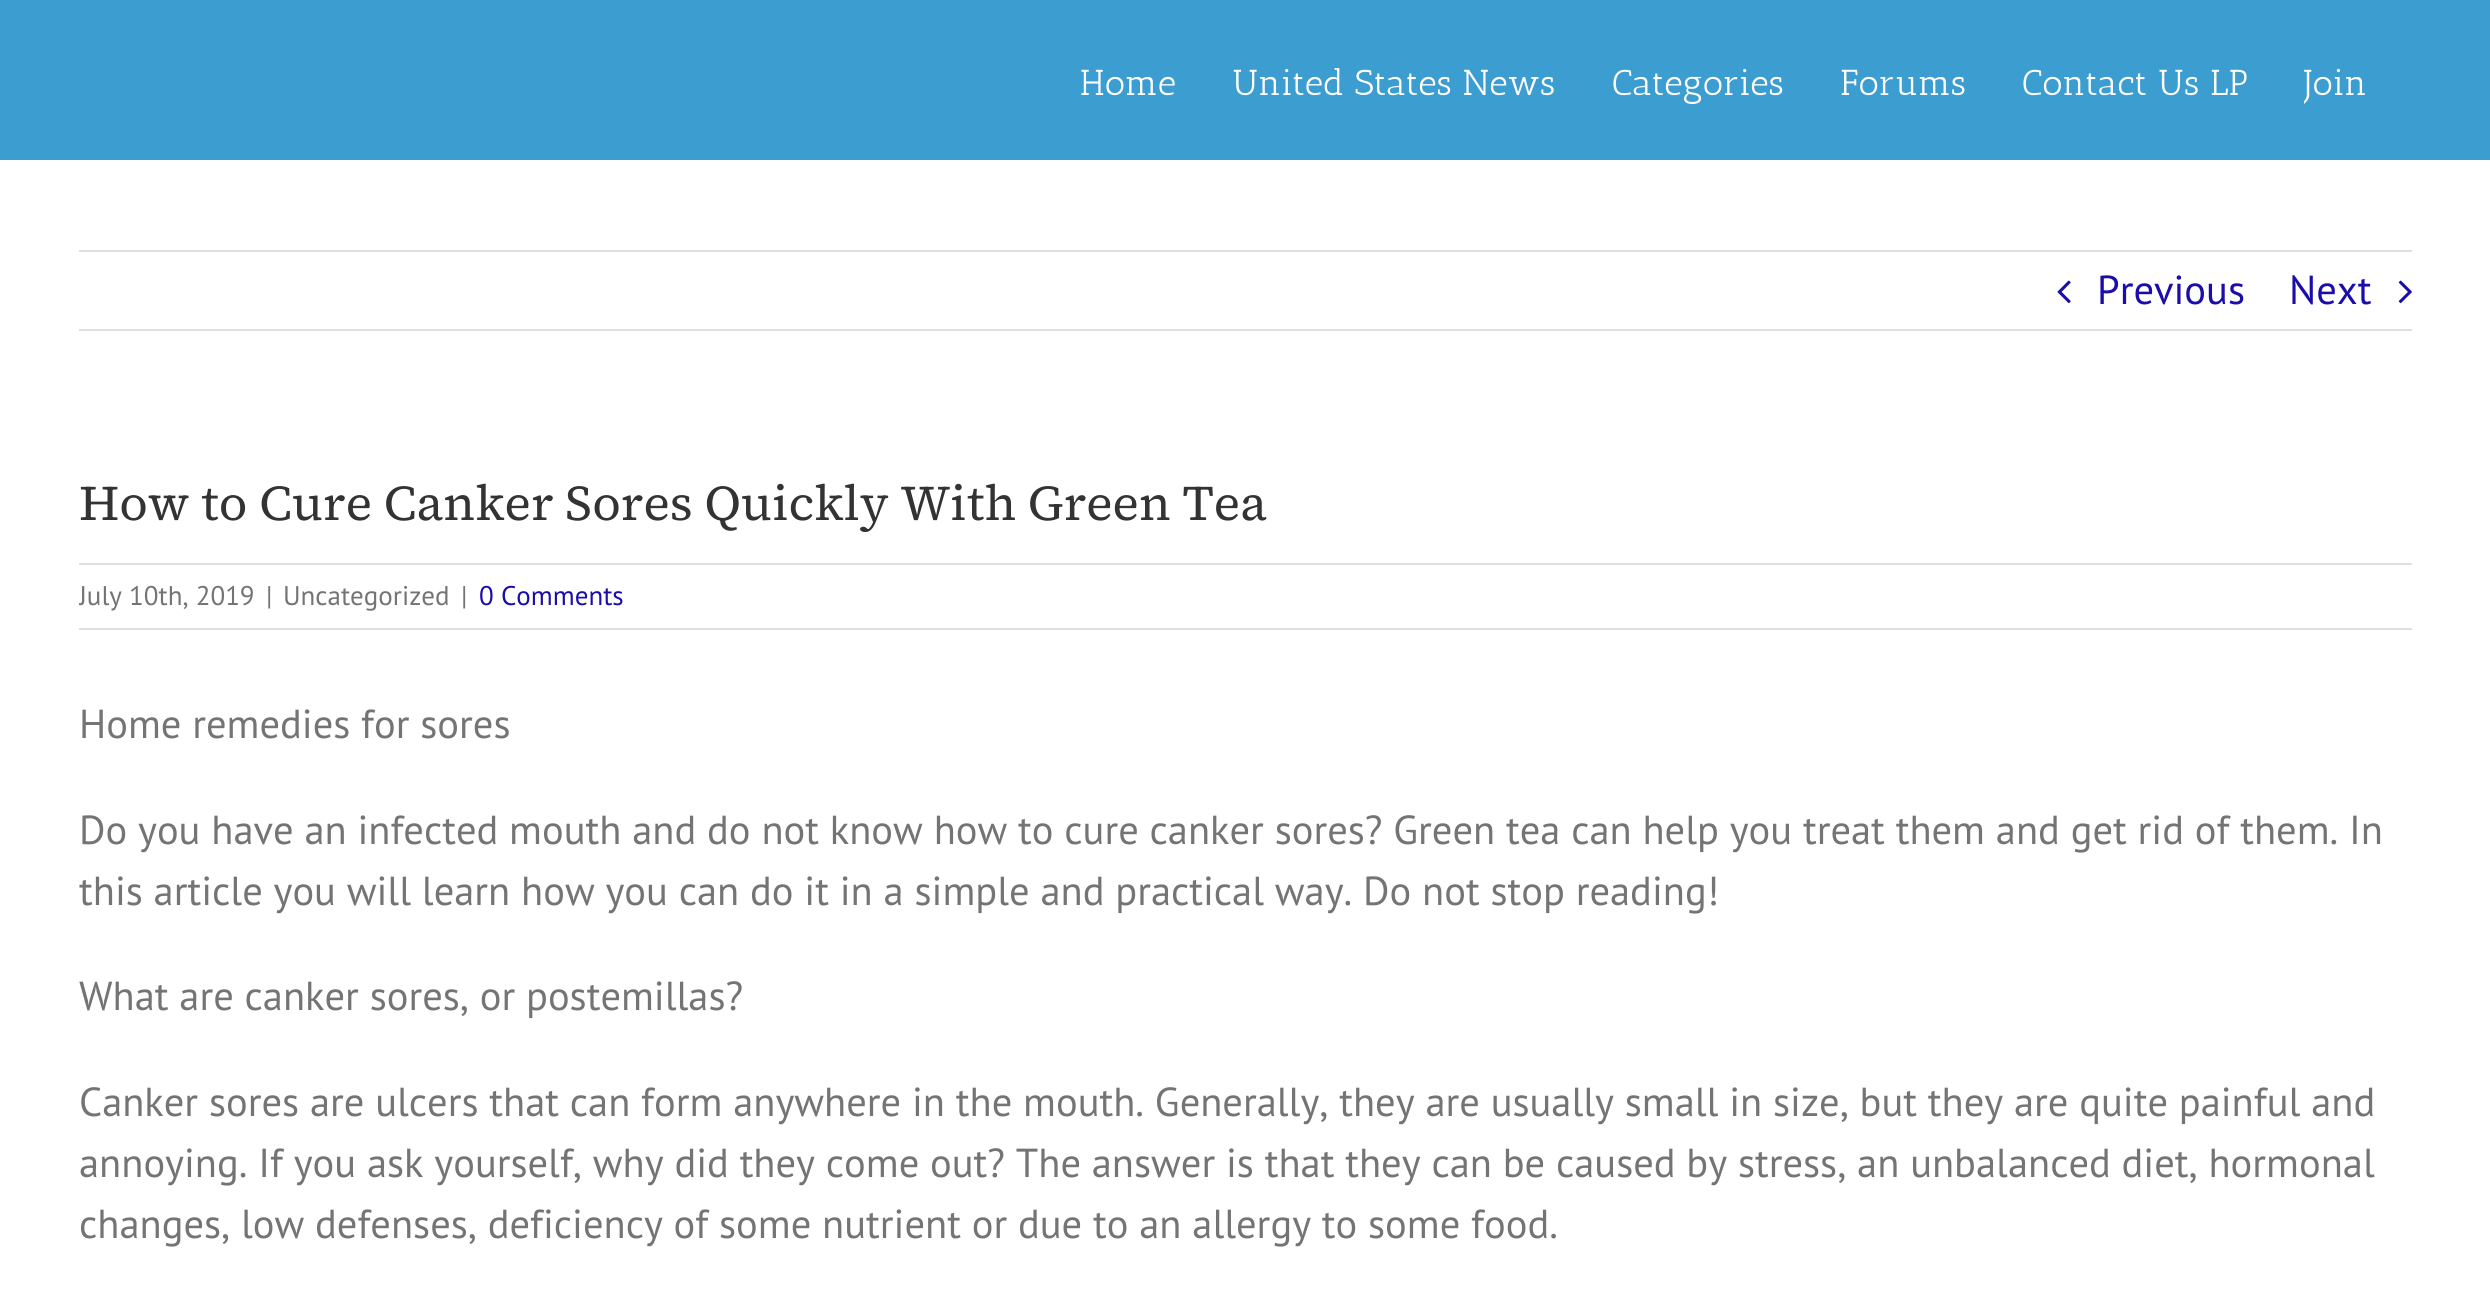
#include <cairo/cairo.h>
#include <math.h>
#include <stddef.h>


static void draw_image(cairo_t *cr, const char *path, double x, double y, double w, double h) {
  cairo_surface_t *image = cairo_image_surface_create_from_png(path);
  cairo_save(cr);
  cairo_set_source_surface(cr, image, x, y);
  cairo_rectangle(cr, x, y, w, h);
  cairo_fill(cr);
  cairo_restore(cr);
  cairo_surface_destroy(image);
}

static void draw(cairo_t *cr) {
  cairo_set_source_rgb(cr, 1, 1, 1);
  cairo_paint(cr);
  cairo_set_source_rgb(cr, 60 / 255.0, 157 / 255.0, 208 / 255.0);
  cairo_rectangle(cr, 0, 0, 2490, 160);
  cairo_fill(cr);
  cairo_set_source_rgb(cr, 224 / 255.0, 222 / 255.0, 222 / 255.0);
  cairo_rectangle(cr, 79, 250, 2333, 2);
  cairo_fill(cr);
  cairo_rectangle(cr, 79, 329, 2333, 2);
  cairo_fill(cr);
  draw_image(cr, "images/1.png", 2057, 280, 14, 24);
  draw_image(cr, "images/2.png", 2398, 280, 14, 24);
  cairo_rectangle(cr, 79, 563, 2333, 2);
  cairo_fill(cr);
  cairo_rectangle(cr, 79, 628, 2333, 2);
  cairo_fill(cr);
  cairo_select_font_face(cr, "Antic Slab", CAIRO_FONT_SLANT_NORMAL, CAIRO_FONT_WEIGHT_NORMAL);
  cairo_set_font_size(cr, 36);
  cairo_set_source_rgb(cr, 1, 1, 1);
  cairo_move_to(cr, 1080, 95);
  cairo_show_text(cr, "Home");
  cairo_move_to(cr, 1232, 95);
  cairo_show_text(cr, "United States News");
  cairo_move_to(cr, 1612, 95);
  cairo_show_text(cr, "Categories");
  cairo_move_to(cr, 1840, 95);
  cairo_show_text(cr, "Forums");
  cairo_move_to(cr, 2022, 95);
  cairo_show_text(cr, "Contact Us LP");
  cairo_save(cr);
  cairo_rectangle(cr, 2304, 0, 119, 160);
  cairo_clip(cr);
  cairo_move_to(cr, 2304, 95);
  cairo_show_text(cr, "Join");
  cairo_restore(cr);
  cairo_select_font_face(cr, "PT Sans", CAIRO_FONT_SLANT_NORMAL, CAIRO_FONT_WEIGHT_NORMAL);
  cairo_set_font_size(cr, 40.5);
  cairo_set_source_rgb(cr, 26 / 255.0, 13 / 255.0, 171 / 255.0);
  cairo_move_to(cr, 2097, 304);
  cairo_show_text(cr, "Previous");
  cairo_move_to(cr, 2289, 304);
  cairo_show_text(cr, "Next");
  cairo_select_font_face(cr, "Source Serif 4", CAIRO_FONT_SLANT_NORMAL, CAIRO_FONT_WEIGHT_NORMAL);
  cairo_set_font_size(cr, 49.5);
  cairo_set_source_rgb(cr, 51 / 255.0, 51 / 255.0, 51 / 255.0);
  cairo_move_to(cr, 79, 520);
  cairo_show_text(cr, "How to Cure Canker Sores Quickly With Green Tea");
  cairo_save(cr);
  cairo_rectangle(cr, 79, 565, 2333, 63);
  cairo_clip(cr);
  cairo_select_font_face(cr, "PT Sans", CAIRO_FONT_SLANT_NORMAL, CAIRO_FONT_WEIGHT_NORMAL);
  cairo_set_font_size(cr, 27);
  cairo_set_source_rgb(cr, 116 / 255.0, 116 / 255.0, 116 / 255.0);
  cairo_move_to(cr, 79, 605);
  cairo_show_text(cr, "July 10th, 2019");
  cairo_restore(cr);
  cairo_select_font_face(cr, "PT Sans", CAIRO_FONT_SLANT_NORMAL, CAIRO_FONT_WEIGHT_NORMAL);
  cairo_set_font_size(cr, 27);
  cairo_set_source_rgb(cr, 116 / 255.0, 116 / 255.0, 116 / 255.0);
  cairo_move_to(cr, 266, 605);
  cairo_show_text(cr, "|");
  cairo_move_to(cr, 283, 605);
  cairo_show_text(cr, "Uncategorized");
  cairo_move_to(cr, 461, 605);
  cairo_show_text(cr, "|");
  cairo_set_source_rgb(cr, 26 / 255.0, 13 / 255.0, 171 / 255.0);
  cairo_move_to(cr, 479, 605);
  cairo_show_text(cr, "0 Comments");
  cairo_set_font_size(cr, 40.5);
  cairo_set_source_rgb(cr, 116 / 255.0, 116 / 255.0, 116 / 255.0);
  cairo_move_to(cr, 79, 738);
  cairo_show_text(cr, "Home remedies for sores");
  cairo_move_to(cr, 79, 844);
  cairo_show_text(cr, "Do you have an infected mouth and do not know how to cure canker sores? Green tea can help you treat them and get rid of them. In");
  cairo_move_to(cr, 79, 905);
  cairo_show_text(cr, "this article you will learn how you can do it in a simple and practical way. Do not stop reading!");
  cairo_move_to(cr, 79, 1010);
  cairo_show_text(cr, "What are canker sores, or postemillas?");
  cairo_move_to(cr, 79, 1116);
  cairo_show_text(cr, "Canker sores are ulcers that can form anywhere in the mouth. Generally, they are usually small in size, but they are quite painful and");
  cairo_move_to(cr, 79, 1177);
  cairo_show_text(cr, "annoying. If you ask yourself, why did they come out? The answer is that they can be caused by stress, an unbalanced diet, hormonal");
  cairo_move_to(cr, 79, 1238);
  cairo_show_text(cr, "changes, low defenses, deficiency of some nutrient or due to an allergy to some food.");
}

int main(void) {
  cairo_surface_t *surface = cairo_image_surface_create(CAIRO_FORMAT_RGB24, 2490, 1292);
  cairo_t *cr = cairo_create(surface);
  cairo_font_options_t *options = cairo_font_options_create();
  cairo_font_options_set_hint_metrics(options, CAIRO_HINT_METRICS_OFF);
  cairo_font_options_set_hint_style(options, CAIRO_HINT_STYLE_NONE);
  cairo_set_font_options(cr, options);
  cairo_set_miter_limit(cr, 4);
  draw(cr);
  cairo_surface_write_to_png(surface, "out.png");
  cairo_font_options_destroy(options);
  cairo_destroy(cr);
  cairo_surface_destroy(surface);
  return 0;
}
